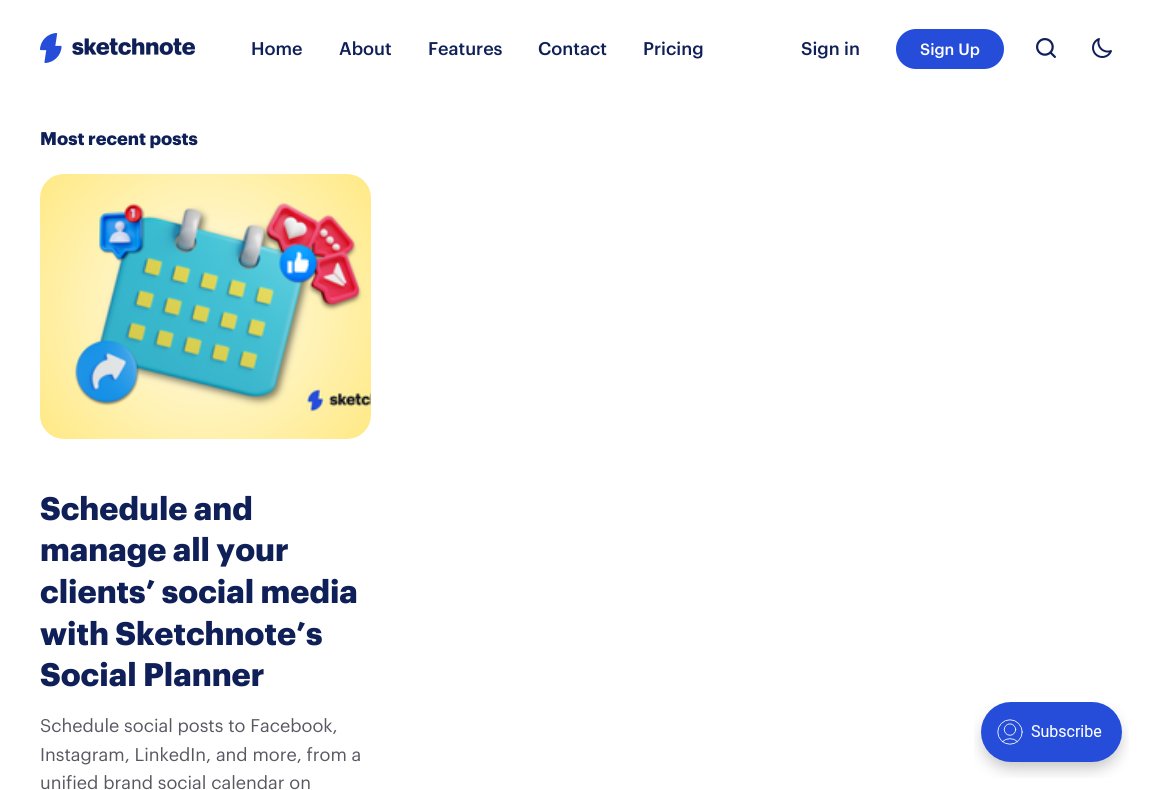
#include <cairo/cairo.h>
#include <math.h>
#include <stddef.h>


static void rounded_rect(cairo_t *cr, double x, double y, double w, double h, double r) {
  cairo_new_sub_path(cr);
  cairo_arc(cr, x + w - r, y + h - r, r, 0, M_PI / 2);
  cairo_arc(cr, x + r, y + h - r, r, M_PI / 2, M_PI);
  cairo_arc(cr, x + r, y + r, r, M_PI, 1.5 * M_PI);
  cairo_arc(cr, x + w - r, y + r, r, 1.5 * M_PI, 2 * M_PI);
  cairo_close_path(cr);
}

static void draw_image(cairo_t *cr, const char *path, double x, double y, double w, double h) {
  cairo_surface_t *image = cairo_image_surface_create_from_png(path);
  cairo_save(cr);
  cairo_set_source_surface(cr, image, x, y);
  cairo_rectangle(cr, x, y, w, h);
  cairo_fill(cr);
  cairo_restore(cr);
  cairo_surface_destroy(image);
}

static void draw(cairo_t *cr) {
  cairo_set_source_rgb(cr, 1, 1, 1);
  cairo_paint(cr);
  draw_image(cr, "images/1.png", 40, 33, 155, 30);
  cairo_set_source_rgb(cr, 37 / 255.0, 77 / 255.0, 218 / 255.0);
  rounded_rect(cr, 896, 29, 108, 40, 20);
  cairo_fill(cr);
  draw_image(cr, "images/2.png", 1036, 38, 20, 20);
  draw_image(cr, "images/3.png", 1092, 38, 20, 20);
  draw_image(cr, "images/4.png", 40, 174, 331, 265);
  draw_image(cr, "images/5.png", 974, 702, 155, 76);
  cairo_select_font_face(cr, "Graphik Medium", CAIRO_FONT_SLANT_NORMAL, CAIRO_FONT_WEIGHT_NORMAL);
  cairo_set_font_size(cr, 18);
  cairo_set_source_rgb(cr, 15 / 255.0, 31 / 255.0, 87 / 255.0);
  cairo_move_to(cr, 251, 55);
  cairo_show_text(cr, "Home");
  cairo_move_to(cr, 339, 55);
  cairo_show_text(cr, "About");
  cairo_move_to(cr, 428, 55);
  cairo_show_text(cr, "Features");
  cairo_move_to(cr, 538, 55);
  cairo_show_text(cr, "Contact");
  cairo_move_to(cr, 643, 55);
  cairo_show_text(cr, "Pricing");
  cairo_move_to(cr, 801, 55);
  cairo_show_text(cr, "Sign in");
  cairo_set_font_size(cr, 16);
  cairo_set_source_rgb(cr, 1, 1, 1);
  cairo_move_to(cr, 920, 55);
  cairo_show_text(cr, "Sign Up");
  cairo_select_font_face(cr, "Graphik", CAIRO_FONT_SLANT_NORMAL, CAIRO_FONT_WEIGHT_BOLD);
  cairo_set_font_size(cr, 18);
  cairo_set_source_rgb(cr, 15 / 255.0, 31 / 255.0, 87 / 255.0);
  cairo_move_to(cr, 40, 145);
  cairo_show_text(cr, "Most recent posts");
  cairo_set_font_size(cr, 32);
  cairo_move_to(cr, 40, 520);
  cairo_show_text(cr, "Schedule and");
  cairo_move_to(cr, 40, 561);
  cairo_show_text(cr, "manage all your");
  cairo_move_to(cr, 40, 603);
  cairo_show_text(cr, "clients’ social media");
  cairo_move_to(cr, 40, 645);
  cairo_show_text(cr, "with Sketchnote’s");
  cairo_move_to(cr, 40, 686);
  cairo_show_text(cr, "Social Planner");
  cairo_select_font_face(cr, "Graphik", CAIRO_FONT_SLANT_NORMAL, CAIRO_FONT_WEIGHT_NORMAL);
  cairo_set_font_size(cr, 18);
  cairo_set_source_rgb(cr, 87 / 255.0, 88 / 255.0, 97 / 255.0);
  cairo_move_to(cr, 40, 732);
  cairo_show_text(cr, "Schedule social posts to Facebook,");
  cairo_move_to(cr, 40, 761);
  cairo_show_text(cr, "Instagram, LinkedIn, and more, from a");
  cairo_move_to(cr, 40, 789);
  cairo_show_text(cr, "unified brand social calendar on");
}

int main(void) {
  cairo_surface_t *surface = cairo_image_surface_create(CAIRO_FORMAT_RGB24, 1152, 790);
  cairo_t *cr = cairo_create(surface);
  cairo_font_options_t *options = cairo_font_options_create();
  cairo_font_options_set_hint_metrics(options, CAIRO_HINT_METRICS_OFF);
  cairo_font_options_set_hint_style(options, CAIRO_HINT_STYLE_NONE);
  cairo_set_font_options(cr, options);
  cairo_set_miter_limit(cr, 4);
  draw(cr);
  cairo_surface_write_to_png(surface, "out.png");
  cairo_font_options_destroy(options);
  cairo_destroy(cr);
  cairo_surface_destroy(surface);
  return 0;
}
